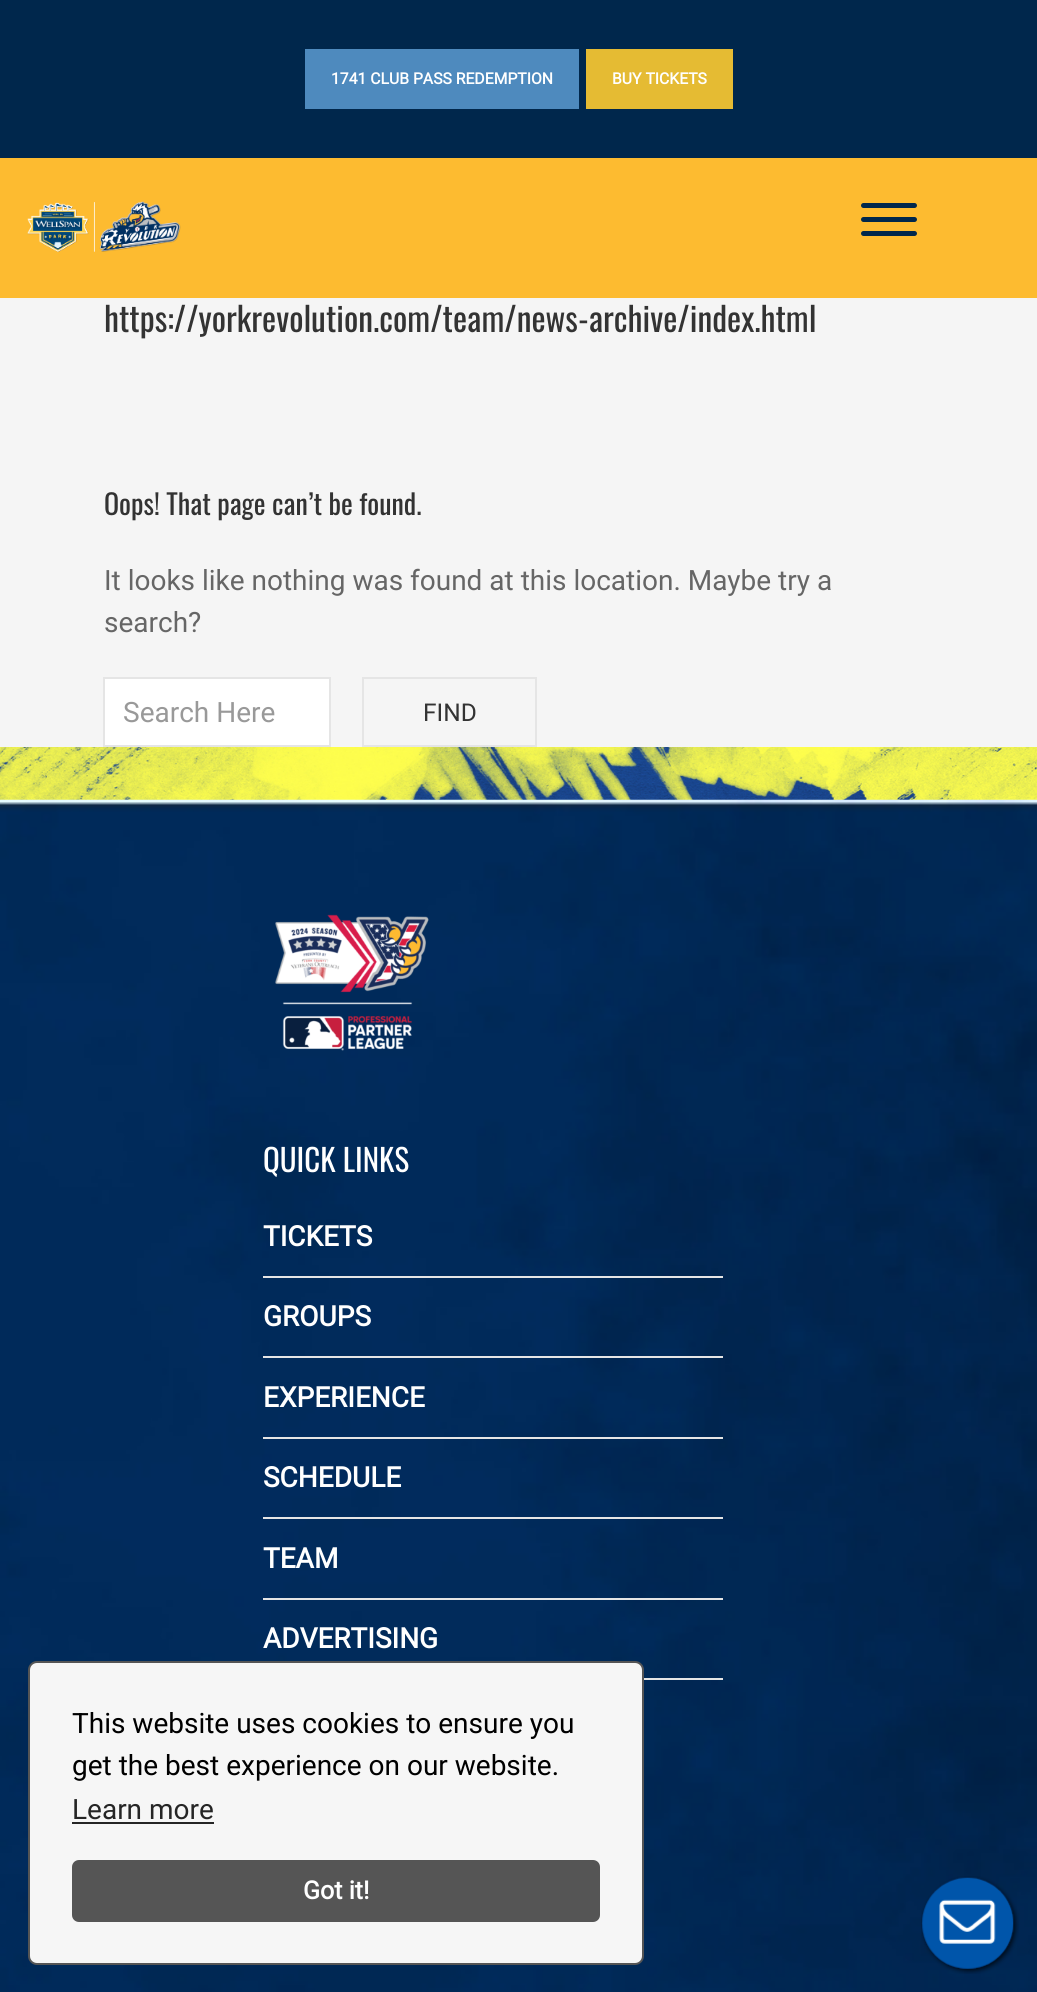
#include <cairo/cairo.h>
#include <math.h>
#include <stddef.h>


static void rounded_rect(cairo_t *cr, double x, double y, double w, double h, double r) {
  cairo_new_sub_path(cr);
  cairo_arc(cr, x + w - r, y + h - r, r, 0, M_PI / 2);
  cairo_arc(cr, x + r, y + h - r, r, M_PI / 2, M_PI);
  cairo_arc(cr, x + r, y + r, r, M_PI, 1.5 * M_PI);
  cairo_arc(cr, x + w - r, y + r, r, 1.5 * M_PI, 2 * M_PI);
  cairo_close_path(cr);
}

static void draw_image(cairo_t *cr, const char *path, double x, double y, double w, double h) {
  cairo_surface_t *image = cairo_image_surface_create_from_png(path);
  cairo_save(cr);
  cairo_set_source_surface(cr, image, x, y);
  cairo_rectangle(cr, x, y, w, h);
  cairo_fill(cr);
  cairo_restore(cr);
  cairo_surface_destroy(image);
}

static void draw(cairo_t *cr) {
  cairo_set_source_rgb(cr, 1, 1, 1);
  cairo_paint(cr);
  draw_image(cr, "images/1.png", 0, 747, 1037, 53);
  cairo_set_source_rgb(cr, 0, 39 / 255.0, 76 / 255.0);
  cairo_rectangle(cr, 0, 0, 1037, 158);
  cairo_fill(cr);
  cairo_set_source_rgb(cr, 78 / 255.0, 138 / 255.0, 190 / 255.0);
  cairo_rectangle(cr, 305, 49, 274, 60);
  cairo_fill(cr);
  cairo_set_source_rgb(cr, 229 / 255.0, 187 / 255.0, 51 / 255.0);
  cairo_rectangle(cr, 586, 49, 147, 60);
  cairo_fill(cr);
  cairo_set_source_rgb(cr, 253 / 255.0, 187 / 255.0, 48 / 255.0);
  cairo_rectangle(cr, 0, 158, 1037, 140);
  cairo_fill(cr);
  draw_image(cr, "images/2.png", 27, 201, 154, 51);
  cairo_set_source_rgb(cr, 0, 39 / 255.0, 76 / 255.0);
  rounded_rect(cr, 861, 203, 56, 5, 2.5);
  cairo_fill(cr);
  rounded_rect(cr, 861, 217, 56, 5, 2.5);
  cairo_fill(cr);
  rounded_rect(cr, 861, 231, 56, 5, 2.5);
  cairo_fill(cr);
  cairo_set_source_rgb(cr, 245 / 255.0, 245 / 255.0, 245 / 255.0);
  cairo_rectangle(cr, 0, 298, 1037, 449);
  cairo_fill(cr);
  cairo_set_source_rgb(cr, 1, 1, 1);
  cairo_rectangle(cr, 104, 678, 226, 68);
  cairo_fill_preserve(cr);
  cairo_set_source_rgb(cr, 229 / 255.0, 229 / 255.0, 229 / 255.0);
  cairo_stroke(cr);
  cairo_rectangle(cr, 363, 678, 173, 68);
  cairo_stroke(cr);
  draw_image(cr, "images/3.png", 0, 799, 1037, 1193);
  draw_image(cr, "images/4.png", 275, 914, 154, 137);
  cairo_rectangle(cr, 263, 1276, 460, 2);
  cairo_fill(cr);
  cairo_rectangle(cr, 263, 1356, 460, 2);
  cairo_fill(cr);
  cairo_rectangle(cr, 263, 1437, 460, 2);
  cairo_fill(cr);
  cairo_rectangle(cr, 263, 1517, 460, 2);
  cairo_fill(cr);
  cairo_rectangle(cr, 263, 1598, 460, 2);
  cairo_fill(cr);
  cairo_rectangle(cr, 644, 1678, 79, 2);
  cairo_fill(cr);
  cairo_set_source_rgb(cr, 246 / 255.0, 246 / 255.0, 246 / 255.0);
  rounded_rect(cr, 29, 1662, 614, 302, 8);
  cairo_fill_preserve(cr);
  cairo_set_source_rgb(cr, 85 / 255.0, 85 / 255.0, 85 / 255.0);
  cairo_stroke(cr);
  cairo_set_source_rgb(cr, 37 / 255.0, 37 / 255.0, 37 / 255.0);
  cairo_rectangle(cr, 72, 1822, 142, 2);
  cairo_fill(cr);
  cairo_set_source_rgb(cr, 85 / 255.0, 85 / 255.0, 85 / 255.0);
  rounded_rect(cr, 72, 1860, 528, 62, 7);
  cairo_fill(cr);
  draw_image(cr, "images/5.png", 921, 1876, 98, 98);
  cairo_select_font_face(cr, "Roboto", CAIRO_FONT_SLANT_NORMAL, CAIRO_FONT_WEIGHT_BOLD);
  cairo_set_font_size(cr, 15.75);
  cairo_set_source_rgb(cr, 1, 1, 1);
  cairo_move_to(cr, 331, 84);
  cairo_show_text(cr, "1741 CLUB PASS REDEMPTION");
  cairo_move_to(cr, 612, 84);
  cairo_show_text(cr, "BUY TICKETS");
  cairo_select_font_face(cr, "Oswald", CAIRO_FONT_SLANT_NORMAL, CAIRO_FONT_WEIGHT_NORMAL);
  cairo_set_font_size(cr, 33.6);
  cairo_set_source_rgb(cr, 51 / 255.0, 51 / 255.0, 51 / 255.0);
  cairo_move_to(cr, 104, 332);
  cairo_show_text(cr, "https://yorkrevolution.com/team/news-archive/index.html");
  cairo_set_font_size(cr, 28);
  cairo_move_to(cr, 104, 515);
  cairo_show_text(cr, "Oops! That page can’t be found.");
  cairo_select_font_face(cr, "Roboto", CAIRO_FONT_SLANT_NORMAL, CAIRO_FONT_WEIGHT_NORMAL);
  cairo_set_source_rgb(cr, 102 / 255.0, 102 / 255.0, 102 / 255.0);
  cairo_move_to(cr, 104, 590);
  cairo_show_text(cr, "It looks like nothing was found at this location. Maybe try a");
  cairo_move_to(cr, 104, 632);
  cairo_show_text(cr, "search?");
  cairo_select_font_face(cr, "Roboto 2", CAIRO_FONT_SLANT_NORMAL, CAIRO_FONT_WEIGHT_NORMAL);
  cairo_set_source_rgb(cr, 153 / 255.0, 153 / 255.0, 153 / 255.0);
  cairo_move_to(cr, 123, 722);
  cairo_show_text(cr, "Search Here");
  cairo_set_font_size(cr, 24.5);
  cairo_set_source_rgb(cr, 51 / 255.0, 51 / 255.0, 51 / 255.0);
  cairo_move_to(cr, 423, 721);
  cairo_show_text(cr, "FIND");
  cairo_select_font_face(cr, "Oswald", CAIRO_FONT_SLANT_NORMAL, CAIRO_FONT_WEIGHT_NORMAL);
  cairo_set_font_size(cr, 31);
  cairo_set_source_rgb(cr, 1, 1, 1);
  cairo_move_to(cr, 263, 1172);
  cairo_show_text(cr, "QUICK LINKS");
  cairo_select_font_face(cr, "Roboto", CAIRO_FONT_SLANT_NORMAL, CAIRO_FONT_WEIGHT_BOLD);
  cairo_set_font_size(cr, 28);
  cairo_move_to(cr, 263, 1246);
  cairo_show_text(cr, "TICKETS");
  cairo_move_to(cr, 263, 1326);
  cairo_show_text(cr, "GROUPS");
  cairo_move_to(cr, 263, 1407);
  cairo_show_text(cr, "EXPERIENCE");
  cairo_move_to(cr, 263, 1487);
  cairo_show_text(cr, "SCHEDULE");
  cairo_move_to(cr, 263, 1568);
  cairo_show_text(cr, "TEAM");
  cairo_move_to(cr, 263, 1648);
  cairo_show_text(cr, "ADVERTISING");
  cairo_select_font_face(cr, "Roboto 2", CAIRO_FONT_SLANT_NORMAL, CAIRO_FONT_WEIGHT_NORMAL);
  cairo_set_source_rgb(cr, 0, 0, 0);
  cairo_move_to(cr, 72, 1733);
  cairo_show_text(cr, "This website uses cookies to ensure you");
  cairo_move_to(cr, 72, 1775);
  cairo_show_text(cr, "get the best experience on our website.");
  cairo_select_font_face(cr, "Roboto", CAIRO_FONT_SLANT_NORMAL, CAIRO_FONT_WEIGHT_NORMAL);
  cairo_set_source_rgb(cr, 37 / 255.0, 37 / 255.0, 37 / 255.0);
  cairo_move_to(cr, 72, 1819);
  cairo_show_text(cr, "Learn more");
  cairo_select_font_face(cr, "Roboto", CAIRO_FONT_SLANT_NORMAL, CAIRO_FONT_WEIGHT_BOLD);
  cairo_set_font_size(cr, 25);
  cairo_set_source_rgb(cr, 1, 1, 1);
  cairo_move_to(cr, 303, 1899);
  cairo_show_text(cr, "Got it!");
}

int main(void) {
  cairo_surface_t *surface = cairo_image_surface_create(CAIRO_FORMAT_RGB24, 1037, 1992);
  cairo_t *cr = cairo_create(surface);
  cairo_font_options_t *options = cairo_font_options_create();
  cairo_font_options_set_hint_metrics(options, CAIRO_HINT_METRICS_OFF);
  cairo_font_options_set_hint_style(options, CAIRO_HINT_STYLE_NONE);
  cairo_set_font_options(cr, options);
  cairo_set_miter_limit(cr, 4);
  draw(cr);
  cairo_surface_write_to_png(surface, "out.png");
  cairo_font_options_destroy(options);
  cairo_destroy(cr);
  cairo_surface_destroy(surface);
  return 0;
}
